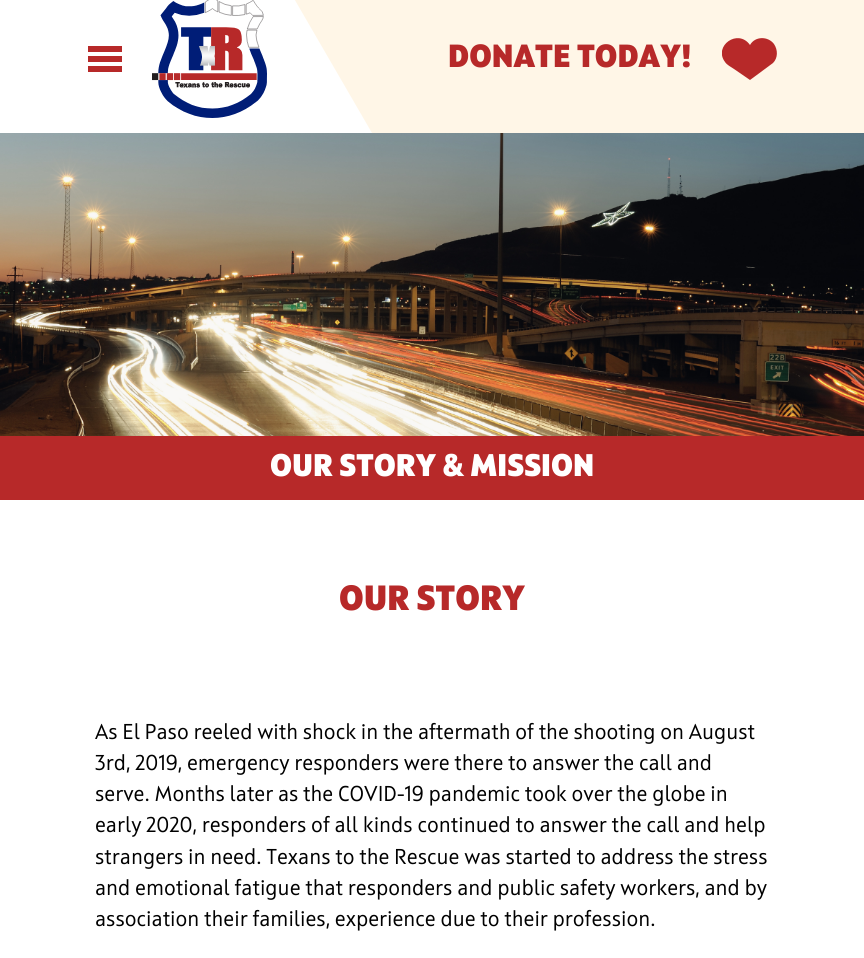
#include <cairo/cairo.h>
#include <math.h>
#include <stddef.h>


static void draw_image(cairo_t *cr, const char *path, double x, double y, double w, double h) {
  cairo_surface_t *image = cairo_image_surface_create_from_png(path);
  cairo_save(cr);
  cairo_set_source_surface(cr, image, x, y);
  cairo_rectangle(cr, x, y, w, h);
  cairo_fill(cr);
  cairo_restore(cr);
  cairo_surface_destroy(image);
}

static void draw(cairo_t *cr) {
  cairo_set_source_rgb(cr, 1, 1, 1);
  cairo_paint(cr);
  cairo_set_source_rgb(cr, 1, 246 / 255.0, 231 / 255.0);
  cairo_new_path(cr);
  cairo_move_to(cr, 285, -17);
  cairo_line_to(cr, 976, -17);
  cairo_line_to(cr, 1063, 133);
  cairo_line_to(cr, 372, 133);
  cairo_close_path(cr);
  cairo_fill(cr);
  cairo_set_source_rgb(cr, 183 / 255.0, 41 / 255.0, 41 / 255.0);
  cairo_rectangle(cr, 88, 56, 34, 6);
  cairo_fill(cr);
  cairo_rectangle(cr, 88, 46, 34, 6);
  cairo_fill(cr);
  cairo_rectangle(cr, 88, 66, 34, 6);
  cairo_fill(cr);
  draw_image(cr, "images/1.png", 152, 0, 115, 118);
  cairo_save(cr);
  cairo_rectangle(cr, 722, 38, 55, 42);
  cairo_clip(cr);
  cairo_new_path(cr);
  cairo_move_to(cr, 774, 44);
  cairo_curve_to(cr, 768, 36, 755, 36, 750, 45);
  cairo_curve_to(cr, 738, 28, 713, 46, 725, 62);
  cairo_curve_to(cr, 727, 65, 731, 67, 734, 69);
  cairo_line_to(cr, 750, 80);
  cairo_line_to(cr, 773, 63);
  cairo_curve_to(cr, 778, 58, 778, 50, 774, 44);
  cairo_close_path(cr);
  cairo_fill(cr);
  cairo_restore(cr);
  draw_image(cr, "images/2.png", 0, 133, 864, 303);
  cairo_rectangle(cr, 0, 436, 864, 64);
  cairo_fill(cr);
  cairo_select_font_face(cr, "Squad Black", CAIRO_FONT_SLANT_NORMAL, CAIRO_FONT_WEIGHT_NORMAL);
  cairo_set_font_size(cr, 32);
  cairo_move_to(cr, 448, 67);
  cairo_show_text(cr, "DONATE TODAY!");
  cairo_set_font_size(cr, 31.25);
  cairo_set_source_rgb(cr, 1, 1, 1);
  cairo_move_to(cr, 270, 476);
  cairo_show_text(cr, "OUR STORY & MISSION");
  cairo_set_font_size(cr, 35);
  cairo_set_source_rgb(cr, 183 / 255.0, 41 / 255.0, 41 / 255.0);
  cairo_move_to(cr, 339, 610);
  cairo_show_text(cr, "OUR STORY");
  cairo_select_font_face(cr, "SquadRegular", CAIRO_FONT_SLANT_NORMAL, CAIRO_FONT_WEIGHT_NORMAL);
  cairo_set_font_size(cr, 21.5);
  cairo_set_source_rgb(cr, 0, 0, 0);
  cairo_move_to(cr, 95, 739);
  cairo_show_text(cr, "As El Paso reeled with shock in the aftermath of the shooting on August");
  cairo_move_to(cr, 95, 770);
  cairo_show_text(cr, "3rd, 2019, emergency responders were there to answer the call and");
  cairo_move_to(cr, 95, 801);
  cairo_show_text(cr, "serve. Months later as the COVID-19 pandemic took over the globe in");
  cairo_move_to(cr, 95, 832);
  cairo_show_text(cr, "early 2020, responders of all kinds continued to answer the call and help");
  cairo_move_to(cr, 95, 864);
  cairo_show_text(cr, "strangers in need. Texans to the Rescue was started to address the stress");
  cairo_move_to(cr, 95, 895);
  cairo_show_text(cr, "and emotional fatigue that responders and public safety workers, and by");
  cairo_move_to(cr, 95, 926);
  cairo_show_text(cr, "association their families, experience due to their profession.");
}

int main(void) {
  cairo_surface_t *surface = cairo_image_surface_create(CAIRO_FORMAT_RGB24, 864, 958);
  cairo_t *cr = cairo_create(surface);
  cairo_font_options_t *options = cairo_font_options_create();
  cairo_font_options_set_hint_metrics(options, CAIRO_HINT_METRICS_OFF);
  cairo_font_options_set_hint_style(options, CAIRO_HINT_STYLE_NONE);
  cairo_set_font_options(cr, options);
  cairo_set_miter_limit(cr, 4);
  draw(cr);
  cairo_surface_write_to_png(surface, "out.png");
  cairo_font_options_destroy(options);
  cairo_destroy(cr);
  cairo_surface_destroy(surface);
  return 0;
}
